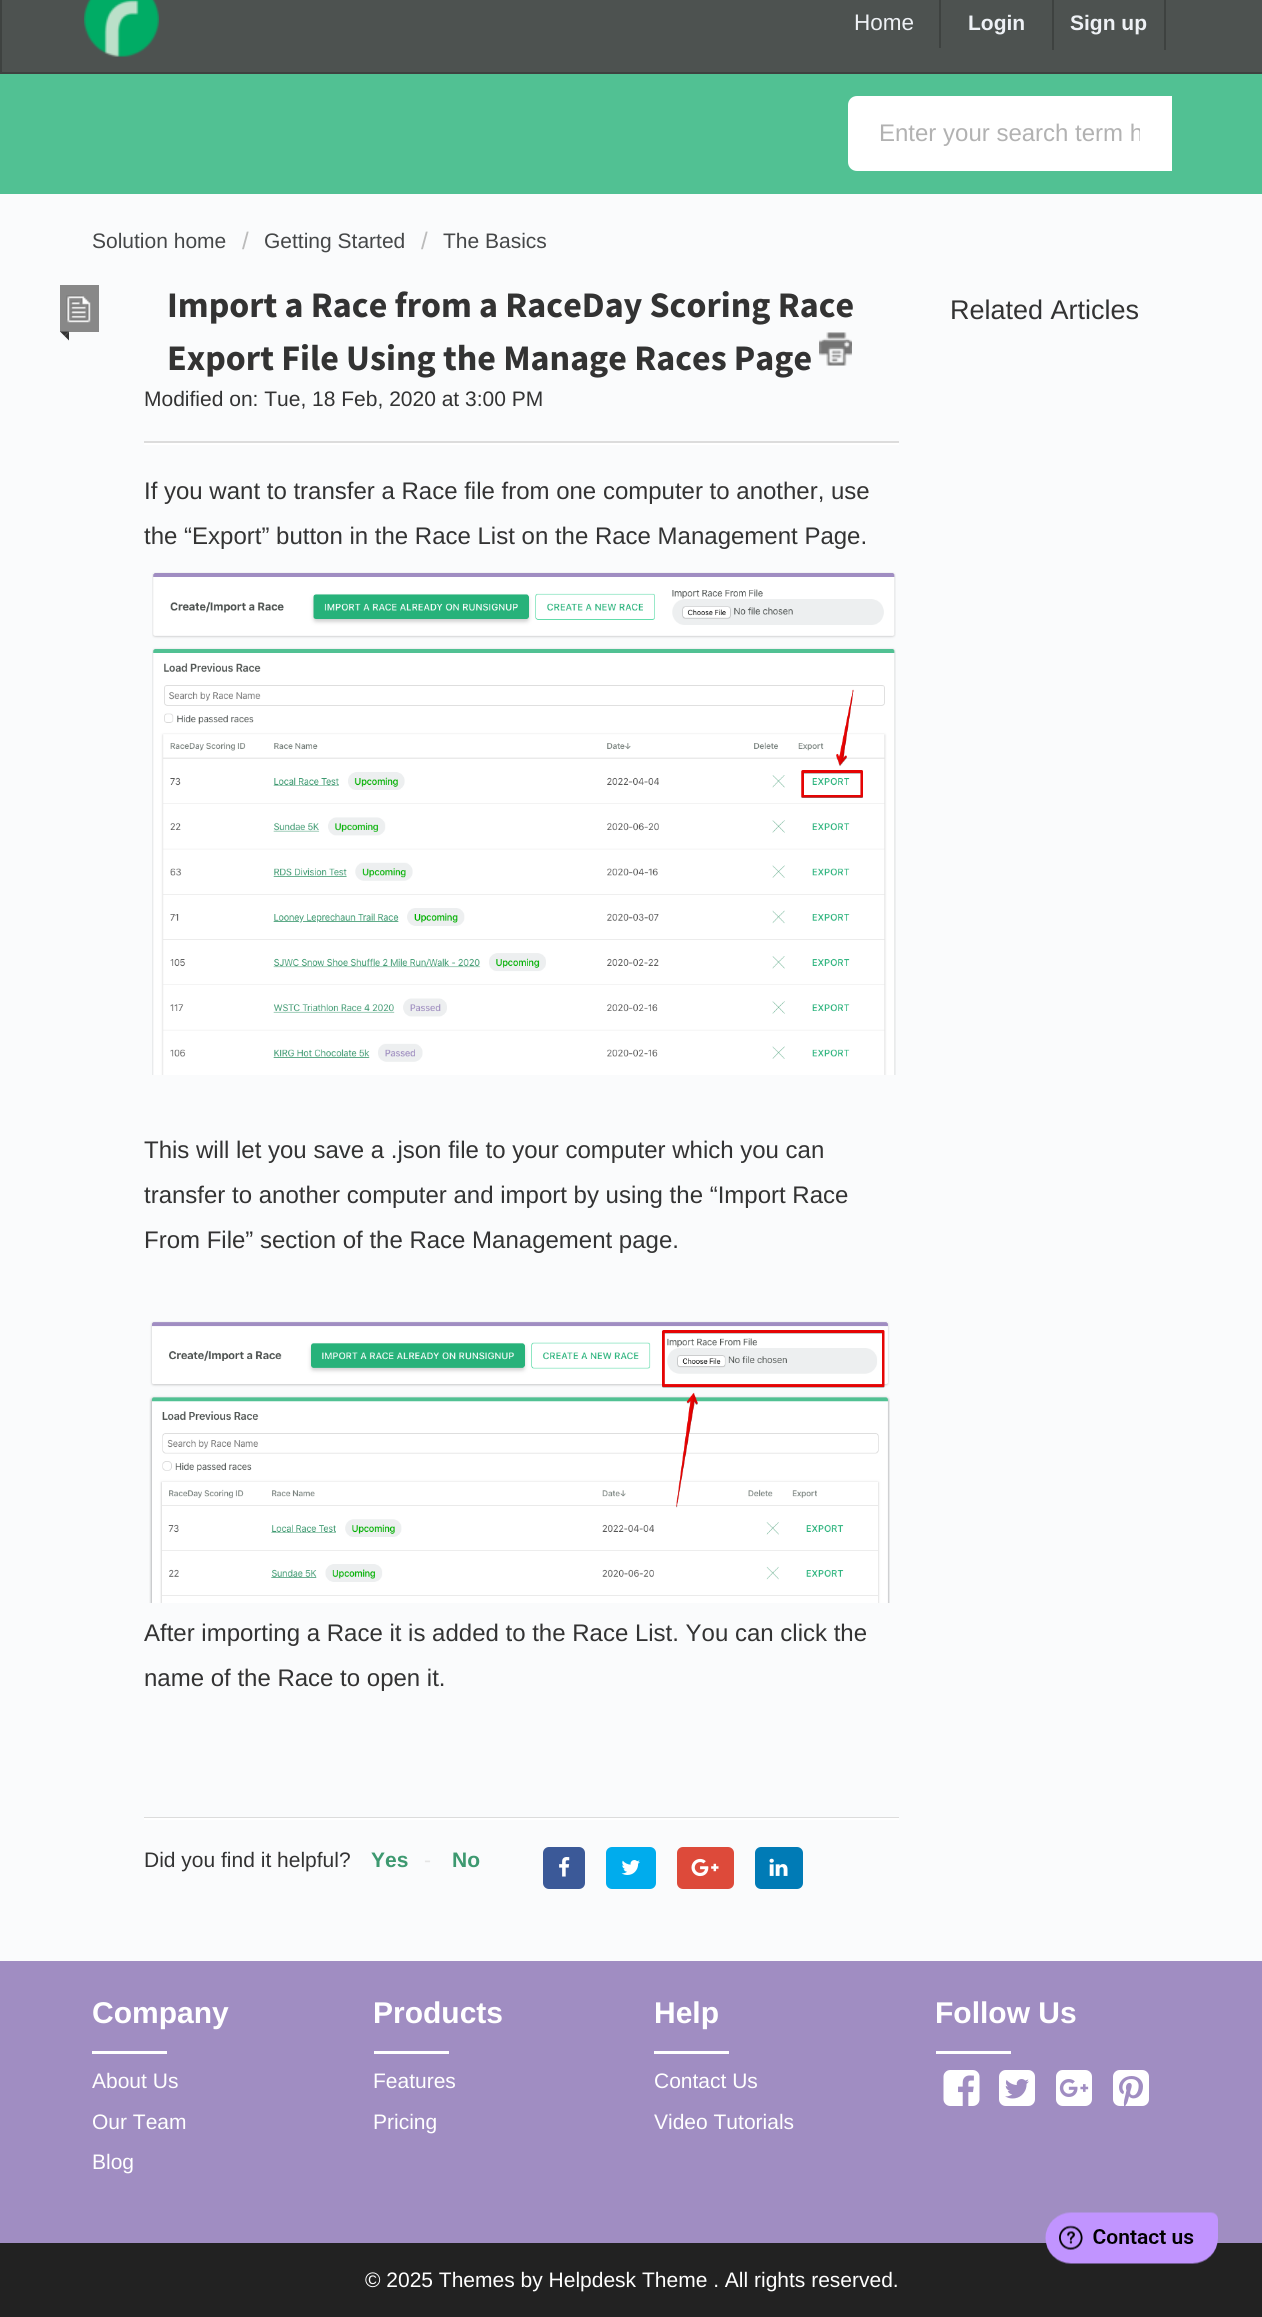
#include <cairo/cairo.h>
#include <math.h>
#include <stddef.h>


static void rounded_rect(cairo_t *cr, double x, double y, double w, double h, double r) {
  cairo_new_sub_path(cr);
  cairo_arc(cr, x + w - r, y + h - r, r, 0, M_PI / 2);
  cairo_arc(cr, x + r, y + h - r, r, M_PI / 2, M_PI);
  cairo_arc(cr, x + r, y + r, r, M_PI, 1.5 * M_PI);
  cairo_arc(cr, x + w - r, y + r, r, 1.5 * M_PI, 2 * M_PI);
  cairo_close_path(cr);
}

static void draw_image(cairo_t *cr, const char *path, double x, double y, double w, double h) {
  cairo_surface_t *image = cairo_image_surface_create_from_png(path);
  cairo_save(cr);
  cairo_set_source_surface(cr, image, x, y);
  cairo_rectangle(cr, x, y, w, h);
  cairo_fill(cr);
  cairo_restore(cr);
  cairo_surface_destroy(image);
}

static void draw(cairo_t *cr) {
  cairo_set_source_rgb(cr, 250 / 255.0, 251 / 255.0, 252 / 255.0);
  cairo_paint(cr);
  cairo_set_source_rgb(cr, 77 / 255.0, 82 / 255.0, 80 / 255.0);
  cairo_rectangle(cr, 0, 0, 1262, 74);
  cairo_fill(cr);
  cairo_set_source_rgb(cr, 62 / 255.0, 66 / 255.0, 64 / 255.0);
  cairo_new_path(cr);
  cairo_move_to(cr, 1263, 74);
  cairo_line_to(cr, 0, 74);
  cairo_line_to(cr, 2, 72);
  cairo_line_to(cr, 1262, 72);
  cairo_close_path(cr);
  cairo_fill(cr);
  cairo_set_source_rgba(cr, 0, 0, 0, 0.2);
  cairo_new_path(cr);
  cairo_move_to(cr, 0, 74);
  cairo_line_to(cr, 0, -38);
  cairo_line_to(cr, 2, -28);
  cairo_line_to(cr, 2, 72);
  cairo_close_path(cr);
  cairo_fill(cr);
  draw_image(cr, "images/1.png", 84, 0, 75, 57);
  cairo_set_source_rgb(cr, 62 / 255.0, 66 / 255.0, 64 / 255.0);
  cairo_rectangle(cr, 939, 0, 2, 48);
  cairo_fill(cr);
  cairo_rectangle(cr, 1052, 0, 2, 50);
  cairo_fill(cr);
  cairo_rectangle(cr, 1164, 0, 2, 50);
  cairo_fill(cr);
  cairo_set_source_rgb(cr, 81 / 255.0, 193 / 255.0, 147 / 255.0);
  cairo_rectangle(cr, 0, 74, 1262, 120);
  cairo_fill(cr);
  cairo_set_source_rgb(cr, 1, 1, 1);
  cairo_new_path(cr);
  cairo_move_to(cr, 857, 97);
  cairo_line_to(cr, 1171, 97);
  cairo_line_to(cr, 1171, 170);
  cairo_line_to(cr, 857, 170);
  cairo_curve_to(cr, 852.5, 170, 849, 166.5, 849, 162);
  cairo_line_to(cr, 849, 105);
  cairo_curve_to(cr, 849, 100.5, 852.5, 97, 857, 97);
  cairo_close_path(cr);
  cairo_fill_preserve(cr);
  cairo_stroke(cr);
  cairo_set_source_rgb(cr, 136 / 255.0, 136 / 255.0, 136 / 255.0);
  cairo_rectangle(cr, 60, 285, 39, 47);
  cairo_fill(cr);
  draw_image(cr, "images/2.png", 66, 295, 25, 28);
  cairo_set_source_rgb(cr, 51 / 255.0, 51 / 255.0, 51 / 255.0);
  cairo_new_path(cr);
  cairo_move_to(cr, 60, 331.5);
  cairo_line_to(cr, 69, 331.5);
  cairo_line_to(cr, 64.5, 336);
  cairo_close_path(cr);
  cairo_fill(cr);
  cairo_new_path(cr);
  cairo_move_to(cr, 69, 331.5);
  cairo_line_to(cr, 69, 340.5);
  cairo_line_to(cr, 64.5, 336);
  cairo_close_path(cr);
  cairo_fill(cr);
  draw_image(cr, "images/3.png", 819, 332, 33, 34);
  cairo_set_source_rgb(cr, 220 / 255.0, 220 / 255.0, 220 / 255.0);
  cairo_rectangle(cr, 144, 441, 755, 2);
  cairo_fill(cr);
  cairo_set_source_rgb(cr, 1, 1, 1);
  cairo_rectangle(cr, 144, 443, 755, 2);
  cairo_fill(cr);
  draw_image(cr, "images/4.png", 152, 572, 744, 503);
  draw_image(cr, "images/5.png", 149, 1321, 741, 282);
  cairo_set_source_rgb(cr, 220 / 255.0, 220 / 255.0, 220 / 255.0);
  cairo_rectangle(cr, 144, 1817, 755, 1);
  cairo_fill(cr);
  cairo_set_source_rgb(cr, 1, 1, 1);
  cairo_rectangle(cr, 144, 1818, 755, 2);
  cairo_fill(cr);
  cairo_set_source_rgb(cr, 59 / 255.0, 89 / 255.0, 152 / 255.0);
  rounded_rect(cr, 543, 1847, 42, 42, 6);
  cairo_fill(cr);
  draw_image(cr, "images/6.png", 559, 1857, 11, 20);
  cairo_set_source_rgb(cr, 0, 172 / 255.0, 237 / 255.0);
  rounded_rect(cr, 606, 1847, 50, 42, 6);
  cairo_fill(cr);
  draw_image(cr, "images/7.png", 621, 1860, 19, 15);
  cairo_set_source_rgb(cr, 221 / 255.0, 74 / 255.0, 58 / 255.0);
  rounded_rect(cr, 677, 1847, 57, 42, 6);
  cairo_fill(cr);
  draw_image(cr, "images/8.png", 691, 1858, 28, 19);
  cairo_set_source_rgb(cr, 0, 123 / 255.0, 182 / 255.0);
  rounded_rect(cr, 755, 1847, 48, 42, 6);
  cairo_fill(cr);
  draw_image(cr, "images/9.png", 769, 1858, 19, 18);
  cairo_set_source_rgb(cr, 160 / 255.0, 141 / 255.0, 194 / 255.0);
  cairo_rectangle(cr, 0, 1961, 1262, 282);
  cairo_fill(cr);
  cairo_set_source_rgb(cr, 1, 1, 1);
  cairo_rectangle(cr, 92, 2051, 75, 3);
  cairo_fill(cr);
  cairo_rectangle(cr, 374, 2051, 75, 3);
  cairo_fill(cr);
  cairo_rectangle(cr, 654, 2051, 75, 3);
  cairo_fill(cr);
  cairo_rectangle(cr, 936, 2051, 75, 3);
  cairo_fill(cr);
  draw_image(cr, "images/10.png", 943, 2070, 37, 36);
  draw_image(cr, "images/11.png", 999, 2070, 36, 36);
  draw_image(cr, "images/12.png", 1056, 2070, 36, 36);
  draw_image(cr, "images/13.png", 1113, 2070, 36, 36);
  cairo_set_source_rgb(cr, 34 / 255.0, 34 / 255.0, 34 / 255.0);
  cairo_rectangle(cr, 0, 2243, 1262, 74);
  cairo_fill(cr);
  draw_image(cr, "images/14.png", 1045, 2212, 173, 52);
  cairo_select_font_face(cr, "Liberation Sans", CAIRO_FONT_SLANT_NORMAL, CAIRO_FONT_WEIGHT_NORMAL);
  cairo_set_font_size(cr, 22.5);
  cairo_set_source_rgb(cr, 238 / 255.0, 241 / 255.0, 245 / 255.0);
  cairo_move_to(cr, 854, 30);
  cairo_show_text(cr, "Home");
  cairo_select_font_face(cr, "Liberation Sans", CAIRO_FONT_SLANT_NORMAL, CAIRO_FONT_WEIGHT_BOLD);
  cairo_set_font_size(cr, 21);
  cairo_move_to(cr, 968, 30);
  cairo_show_text(cr, "Login");
  cairo_move_to(cr, 1070, 30);
  cairo_show_text(cr, "Sign up");
  cairo_save(cr);
  cairo_rectangle(cr, 879, 120, 261, 27);
  cairo_clip(cr);
  cairo_select_font_face(cr, "Liberation Sans", CAIRO_FONT_SLANT_NORMAL, CAIRO_FONT_WEIGHT_NORMAL);
  cairo_set_font_size(cr, 24);
  cairo_set_source_rgb(cr, 178 / 255.0, 178 / 255.0, 178 / 255.0);
  cairo_move_to(cr, 879, 141);
  cairo_show_text(cr, "Enter your search term h");
  cairo_restore(cr);
  cairo_select_font_face(cr, "Liberation Sans", CAIRO_FONT_SLANT_NORMAL, CAIRO_FONT_WEIGHT_NORMAL);
  cairo_set_source_rgb(cr, 69 / 255.0, 71 / 255.0, 72 / 255.0);
  cairo_move_to(cr, 92, 248);
  cairo_show_text(cr, "Solution home");
  cairo_set_font_size(cr, 24);
  cairo_set_source_rgb(cr, 187 / 255.0, 187 / 255.0, 187 / 255.0);
  cairo_move_to(cr, 242, 249);
  cairo_show_text(cr, "/");
  cairo_set_font_size(cr, 21);
  cairo_set_source_rgb(cr, 69 / 255.0, 71 / 255.0, 72 / 255.0);
  cairo_move_to(cr, 264, 248);
  cairo_show_text(cr, "Getting Started");
  cairo_set_font_size(cr, 24);
  cairo_set_source_rgb(cr, 187 / 255.0, 187 / 255.0, 187 / 255.0);
  cairo_move_to(cr, 421, 249);
  cairo_show_text(cr, "/");
  cairo_set_font_size(cr, 21);
  cairo_set_source_rgb(cr, 69 / 255.0, 71 / 255.0, 72 / 255.0);
  cairo_move_to(cr, 443, 248);
  cairo_show_text(cr, "The Basics");
  cairo_select_font_face(cr, "Source Sans Pro", CAIRO_FONT_SLANT_NORMAL, CAIRO_FONT_WEIGHT_BOLD);
  cairo_set_font_size(cr, 36);
  cairo_set_source_rgb(cr, 51 / 255.0, 51 / 255.0, 51 / 255.0);
  cairo_move_to(cr, 167, 317);
  cairo_show_text(cr, "Import a Race from a RaceDay Scoring Race");
  cairo_move_to(cr, 167, 370);
  cairo_show_text(cr, "Export File Using the Manage Races Page");
  cairo_select_font_face(cr, "Liberation Sans", CAIRO_FONT_SLANT_NORMAL, CAIRO_FONT_WEIGHT_NORMAL);
  cairo_set_font_size(cr, 21);
  cairo_move_to(cr, 144, 406);
  cairo_show_text(cr, "Modified on: Tue, 18 Feb, 2020 at 3:00 PM");
  cairo_set_font_size(cr, 24);
  cairo_move_to(cr, 144, 499);
  cairo_show_text(cr, "If you want to transfer a Race file from one computer to another, use");
  cairo_move_to(cr, 144, 544);
  cairo_show_text(cr, "the “Export” button in the Race List on the Race Management Page.");
  cairo_move_to(cr, 144, 1158);
  cairo_show_text(cr, "This will let you save a .json file to your computer which you can");
  cairo_move_to(cr, 144, 1203);
  cairo_show_text(cr, "transfer to another computer and import by using the “Import Race");
  cairo_move_to(cr, 144, 1248);
  cairo_show_text(cr, "From File” section of the Race Management page.");
  cairo_move_to(cr, 144, 1641);
  cairo_show_text(cr, "After importing a Race it is added to the Race List. You can click the");
  cairo_move_to(cr, 144, 1686);
  cairo_show_text(cr, "name of the Race to open it.");
  cairo_set_font_size(cr, 21);
  cairo_move_to(cr, 144, 1867);
  cairo_show_text(cr, "Did you find it helpful?");
  cairo_select_font_face(cr, "Liberation Sans", CAIRO_FONT_SLANT_NORMAL, CAIRO_FONT_WEIGHT_BOLD);
  cairo_set_source_rgb(cr, 61 / 255.0, 153 / 255.0, 112 / 255.0);
  cairo_move_to(cr, 371, 1867);
  cairo_show_text(cr, "Yes");
  cairo_select_font_face(cr, "Liberation Sans", CAIRO_FONT_SLANT_NORMAL, CAIRO_FONT_WEIGHT_NORMAL);
  cairo_set_source_rgb(cr, 229 / 255.0, 229 / 255.0, 229 / 255.0);
  cairo_move_to(cr, 424, 1867);
  cairo_show_text(cr, "-");
  cairo_select_font_face(cr, "Liberation Sans", CAIRO_FONT_SLANT_NORMAL, CAIRO_FONT_WEIGHT_BOLD);
  cairo_set_source_rgb(cr, 61 / 255.0, 153 / 255.0, 112 / 255.0);
  cairo_move_to(cr, 452, 1867);
  cairo_show_text(cr, "No");
  cairo_select_font_face(cr, "Liberation Sans", CAIRO_FONT_SLANT_NORMAL, CAIRO_FONT_WEIGHT_NORMAL);
  cairo_set_font_size(cr, 27);
  cairo_set_source_rgb(cr, 51 / 255.0, 51 / 255.0, 51 / 255.0);
  cairo_move_to(cr, 950, 319);
  cairo_show_text(cr, "Related Articles");
  cairo_select_font_face(cr, "Liberation Sans", CAIRO_FONT_SLANT_NORMAL, CAIRO_FONT_WEIGHT_BOLD);
  cairo_set_font_size(cr, 30);
  cairo_set_source_rgb(cr, 1, 1, 1);
  cairo_move_to(cr, 92, 2023);
  cairo_show_text(cr, "Company");
  cairo_select_font_face(cr, "Liberation Sans", CAIRO_FONT_SLANT_NORMAL, CAIRO_FONT_WEIGHT_NORMAL);
  cairo_set_font_size(cr, 21);
  cairo_move_to(cr, 92, 2088);
  cairo_show_text(cr, "About Us");
  cairo_move_to(cr, 92, 2129);
  cairo_show_text(cr, "Our Team");
  cairo_move_to(cr, 92, 2169);
  cairo_show_text(cr, "Blog");
  cairo_select_font_face(cr, "Liberation Sans", CAIRO_FONT_SLANT_NORMAL, CAIRO_FONT_WEIGHT_BOLD);
  cairo_set_font_size(cr, 30);
  cairo_move_to(cr, 373, 2023);
  cairo_show_text(cr, "Products");
  cairo_select_font_face(cr, "Liberation Sans", CAIRO_FONT_SLANT_NORMAL, CAIRO_FONT_WEIGHT_NORMAL);
  cairo_set_font_size(cr, 21);
  cairo_move_to(cr, 373, 2088);
  cairo_show_text(cr, "Features");
  cairo_move_to(cr, 373, 2129);
  cairo_show_text(cr, "Pricing");
  cairo_select_font_face(cr, "Liberation Sans", CAIRO_FONT_SLANT_NORMAL, CAIRO_FONT_WEIGHT_BOLD);
  cairo_set_font_size(cr, 30);
  cairo_move_to(cr, 654, 2023);
  cairo_show_text(cr, "Help");
  cairo_select_font_face(cr, "Liberation Sans", CAIRO_FONT_SLANT_NORMAL, CAIRO_FONT_WEIGHT_NORMAL);
  cairo_set_font_size(cr, 21);
  cairo_move_to(cr, 654, 2088);
  cairo_show_text(cr, "Contact Us");
  cairo_move_to(cr, 654, 2129);
  cairo_show_text(cr, "Video Tutorials");
  cairo_select_font_face(cr, "Liberation Sans", CAIRO_FONT_SLANT_NORMAL, CAIRO_FONT_WEIGHT_BOLD);
  cairo_set_font_size(cr, 30);
  cairo_move_to(cr, 935, 2023);
  cairo_show_text(cr, "Follow Us");
  cairo_select_font_face(cr, "Liberation Sans", CAIRO_FONT_SLANT_NORMAL, CAIRO_FONT_WEIGHT_NORMAL);
  cairo_set_font_size(cr, 21);
  cairo_move_to(cr, 365, 2287);
  cairo_show_text(cr, "© 2025 Themes by Helpdesk Theme . All rights reserved.");
}

int main(void) {
  cairo_surface_t *surface = cairo_image_surface_create(CAIRO_FORMAT_RGB24, 1262, 2317);
  cairo_t *cr = cairo_create(surface);
  cairo_font_options_t *options = cairo_font_options_create();
  cairo_font_options_set_hint_metrics(options, CAIRO_HINT_METRICS_OFF);
  cairo_font_options_set_hint_style(options, CAIRO_HINT_STYLE_NONE);
  cairo_set_font_options(cr, options);
  cairo_set_miter_limit(cr, 4);
  draw(cr);
  cairo_surface_write_to_png(surface, "out.png");
  cairo_font_options_destroy(options);
  cairo_destroy(cr);
  cairo_surface_destroy(surface);
  return 0;
}
